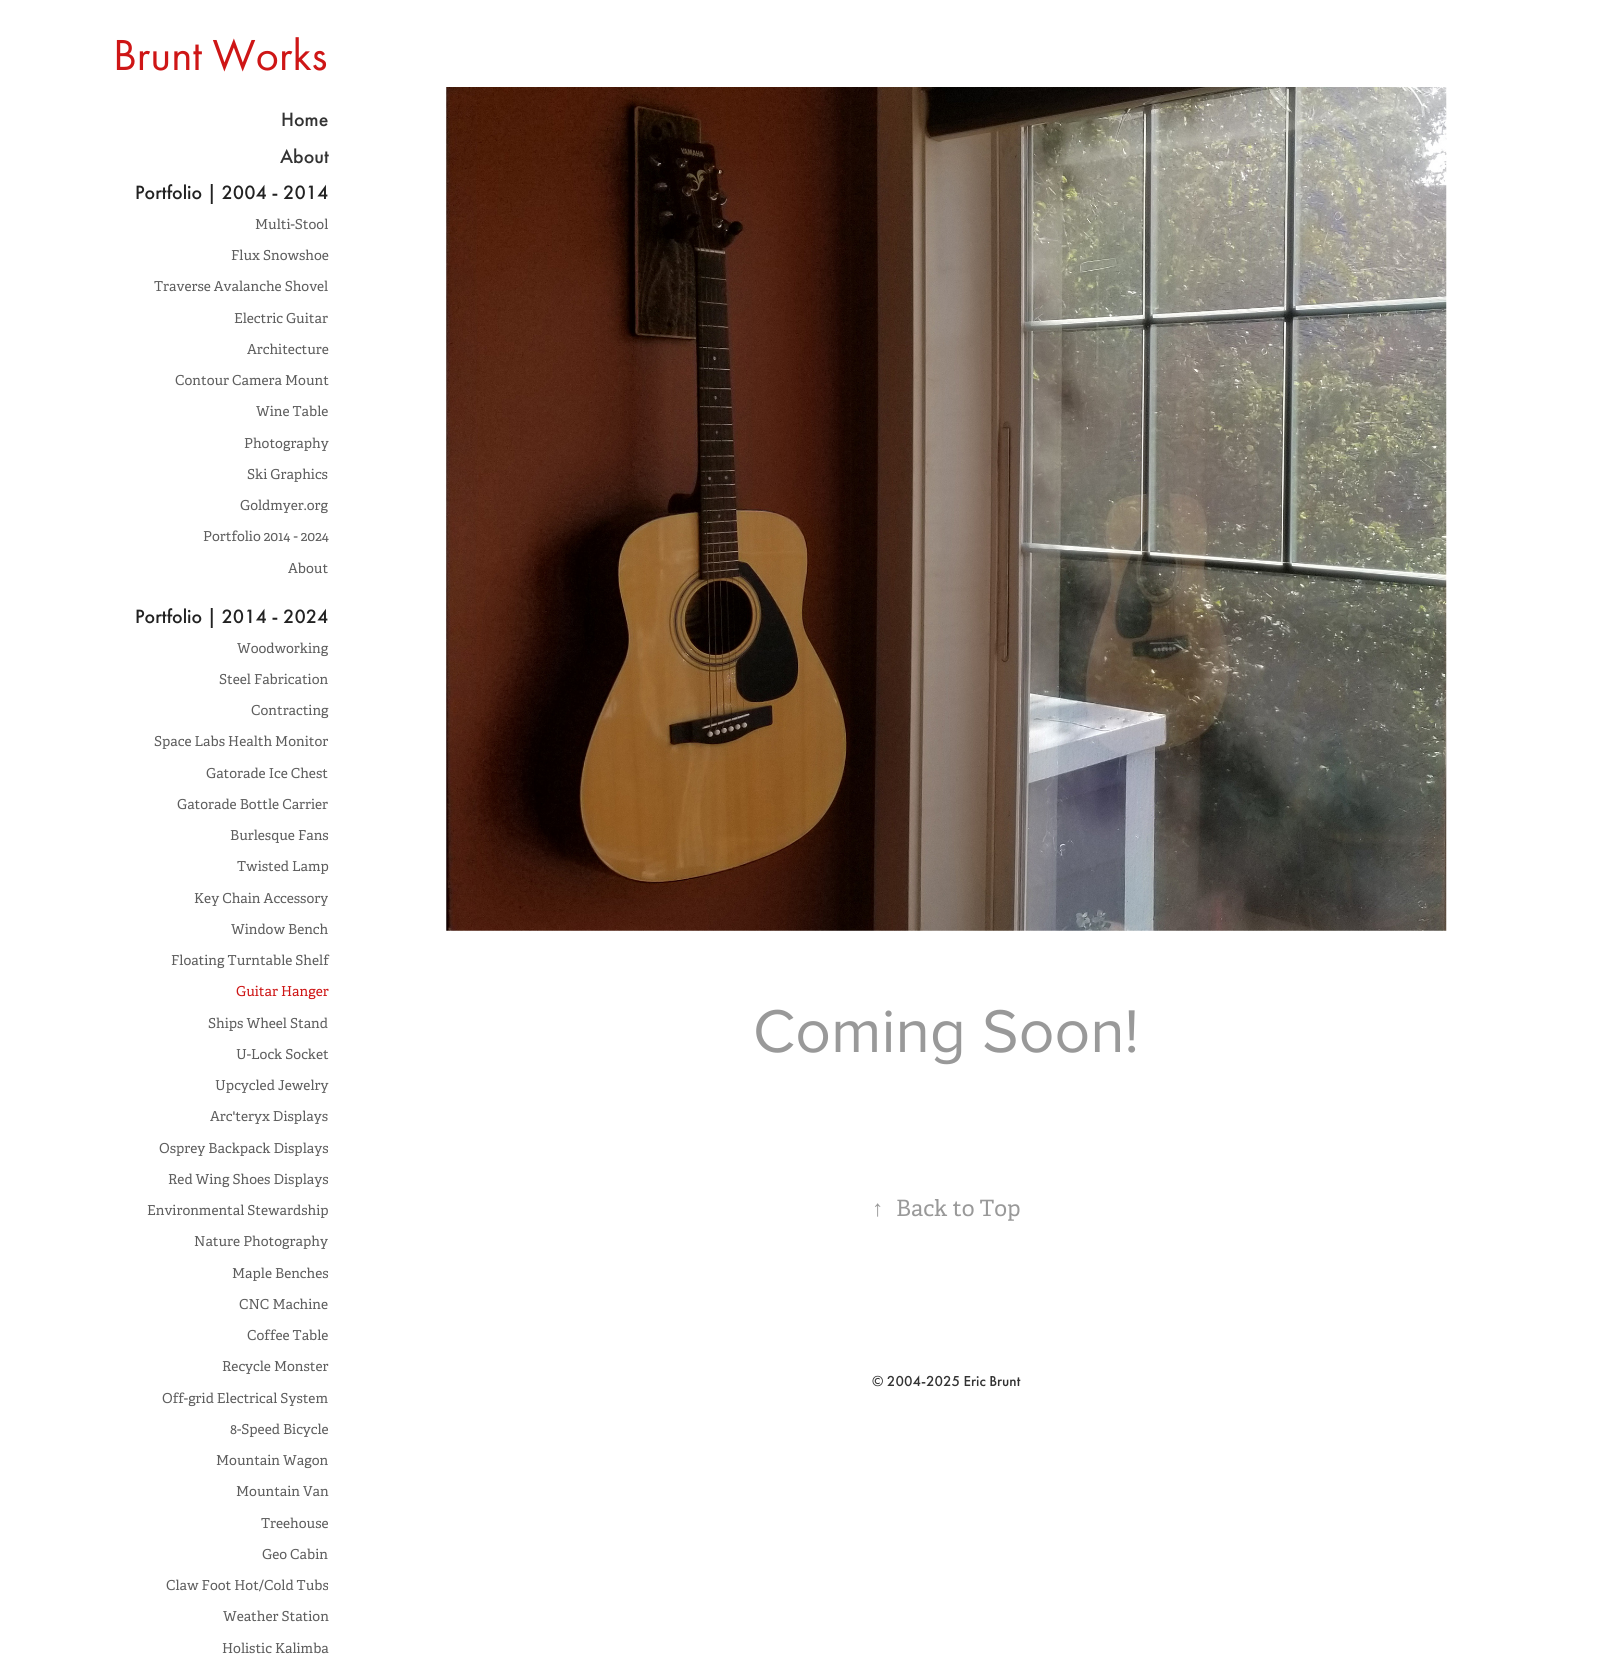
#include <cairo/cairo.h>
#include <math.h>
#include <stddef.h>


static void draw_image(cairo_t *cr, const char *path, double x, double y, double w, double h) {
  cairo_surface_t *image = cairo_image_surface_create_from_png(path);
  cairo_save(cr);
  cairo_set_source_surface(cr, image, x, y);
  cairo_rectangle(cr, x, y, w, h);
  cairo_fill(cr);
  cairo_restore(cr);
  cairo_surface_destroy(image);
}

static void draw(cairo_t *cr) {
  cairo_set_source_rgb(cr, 1, 1, 1);
  cairo_paint(cr);
  draw_image(cr, "images/1.png", 446, 87, 1001, 844);
  cairo_select_font_face(cr, "Futura PT", CAIRO_FONT_SLANT_NORMAL, CAIRO_FONT_WEIGHT_NORMAL);
  cairo_set_font_size(cr, 45);
  cairo_set_source_rgb(cr, 206 / 255.0, 22 / 255.0, 22 / 255.0);
  cairo_move_to(cr, 113, 70);
  cairo_show_text(cr, "Brunt Works");
  cairo_select_font_face(cr, "Futura PT Medium", CAIRO_FONT_SLANT_NORMAL, CAIRO_FONT_WEIGHT_NORMAL);
  cairo_set_font_size(cr, 20);
  cairo_set_source_rgb(cr, 51 / 255.0, 51 / 255.0, 51 / 255.0);
  cairo_move_to(cr, 281, 126);
  cairo_show_text(cr, "Home");
  cairo_move_to(cr, 280, 163);
  cairo_show_text(cr, "About");
  cairo_set_source_rgb(cr, 34 / 255.0, 34 / 255.0, 34 / 255.0);
  cairo_move_to(cr, 135, 199);
  cairo_show_text(cr, "Portfolio | 2004 - 2014");
  cairo_select_font_face(cr, "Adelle", CAIRO_FONT_SLANT_NORMAL, CAIRO_FONT_WEIGHT_NORMAL);
  cairo_set_font_size(cr, 13.75);
  cairo_set_source_rgb(cr, 94 / 255.0, 94 / 255.0, 94 / 255.0);
  cairo_move_to(cr, 255, 229);
  cairo_show_text(cr, "Multi-Stool");
  cairo_move_to(cr, 231, 260);
  cairo_show_text(cr, "Flux Snowshoe");
  cairo_move_to(cr, 154, 291);
  cairo_show_text(cr, "Traverse Avalanche Shovel");
  cairo_move_to(cr, 234, 323);
  cairo_show_text(cr, "Electric Guitar");
  cairo_move_to(cr, 247, 354);
  cairo_show_text(cr, "Architecture");
  cairo_move_to(cr, 175, 385);
  cairo_show_text(cr, "Contour Camera Mount");
  cairo_move_to(cr, 256, 416);
  cairo_show_text(cr, "Wine Table");
  cairo_move_to(cr, 244, 448);
  cairo_show_text(cr, "Photography");
  cairo_move_to(cr, 247, 479);
  cairo_show_text(cr, "Ski Graphics");
  cairo_move_to(cr, 240, 510);
  cairo_show_text(cr, "Goldmyer.org");
  cairo_move_to(cr, 203, 541);
  cairo_show_text(cr, "Portfolio 2014 - 2024");
  cairo_move_to(cr, 288, 573);
  cairo_show_text(cr, "About");
  cairo_select_font_face(cr, "Futura PT Medium", CAIRO_FONT_SLANT_NORMAL, CAIRO_FONT_WEIGHT_NORMAL);
  cairo_set_font_size(cr, 20);
  cairo_set_source_rgb(cr, 34 / 255.0, 34 / 255.0, 34 / 255.0);
  cairo_move_to(cr, 135, 623);
  cairo_show_text(cr, "Portfolio | 2014 - 2024");
  cairo_select_font_face(cr, "Adelle", CAIRO_FONT_SLANT_NORMAL, CAIRO_FONT_WEIGHT_NORMAL);
  cairo_set_font_size(cr, 13.75);
  cairo_set_source_rgb(cr, 94 / 255.0, 94 / 255.0, 94 / 255.0);
  cairo_move_to(cr, 237, 653);
  cairo_show_text(cr, "Woodworking");
  cairo_move_to(cr, 219, 684);
  cairo_show_text(cr, "Steel Fabrication");
  cairo_move_to(cr, 251, 715);
  cairo_show_text(cr, "Contracting");
  cairo_move_to(cr, 154, 746);
  cairo_show_text(cr, "Space Labs Health Monitor");
  cairo_move_to(cr, 206, 778);
  cairo_show_text(cr, "Gatorade Ice Chest");
  cairo_move_to(cr, 177, 809);
  cairo_show_text(cr, "Gatorade Bottle Carrier");
  cairo_move_to(cr, 230, 840);
  cairo_show_text(cr, "Burlesque Fans");
  cairo_move_to(cr, 237, 871);
  cairo_show_text(cr, "Twisted Lamp");
  cairo_move_to(cr, 194, 903);
  cairo_show_text(cr, "Key Chain Accessory");
  cairo_move_to(cr, 231, 934);
  cairo_show_text(cr, "Window Bench");
  cairo_move_to(cr, 171, 965);
  cairo_show_text(cr, "Floating Turntable Shelf");
  cairo_set_source_rgb(cr, 206 / 255.0, 22 / 255.0, 22 / 255.0);
  cairo_move_to(cr, 236, 996);
  cairo_show_text(cr, "Guitar Hanger");
  cairo_set_source_rgb(cr, 94 / 255.0, 94 / 255.0, 94 / 255.0);
  cairo_move_to(cr, 208, 1028);
  cairo_show_text(cr, "Ships Wheel Stand");
  cairo_move_to(cr, 236, 1059);
  cairo_show_text(cr, "U-Lock Socket");
  cairo_move_to(cr, 215, 1090);
  cairo_show_text(cr, "Upcycled Jewelry");
  cairo_move_to(cr, 210, 1121);
  cairo_show_text(cr, "Arc'teryx Displays");
  cairo_move_to(cr, 159, 1153);
  cairo_show_text(cr, "Osprey Backpack Displays");
  cairo_move_to(cr, 168, 1184);
  cairo_show_text(cr, "Red Wing Shoes Displays");
  cairo_move_to(cr, 147, 1215);
  cairo_show_text(cr, "Environmental Stewardship");
  cairo_move_to(cr, 194, 1246);
  cairo_show_text(cr, "Nature Photography");
  cairo_move_to(cr, 232, 1278);
  cairo_show_text(cr, "Maple Benches");
  cairo_move_to(cr, 239, 1309);
  cairo_show_text(cr, "CNC Machine");
  cairo_move_to(cr, 247, 1340);
  cairo_show_text(cr, "Coffee Table");
  cairo_move_to(cr, 222, 1371);
  cairo_show_text(cr, "Recycle Monster");
  cairo_move_to(cr, 162, 1403);
  cairo_show_text(cr, "Off-grid Electrical System");
  cairo_move_to(cr, 230, 1434);
  cairo_show_text(cr, "8-Speed Bicycle");
  cairo_move_to(cr, 216, 1465);
  cairo_show_text(cr, "Mountain Wagon");
  cairo_move_to(cr, 236, 1496);
  cairo_show_text(cr, "Mountain Van");
  cairo_move_to(cr, 261, 1528);
  cairo_show_text(cr, "Treehouse");
  cairo_move_to(cr, 262, 1559);
  cairo_show_text(cr, "Geo Cabin");
  cairo_move_to(cr, 166, 1590);
  cairo_show_text(cr, "Claw Foot Hot/Cold Tubs");
  cairo_move_to(cr, 223, 1621);
  cairo_show_text(cr, "Weather Station");
  cairo_move_to(cr, 222, 1653);
  cairo_show_text(cr, "Holistic Kalimba");
  cairo_select_font_face(cr, "Proxima Nova", CAIRO_FONT_SLANT_NORMAL, CAIRO_FONT_WEIGHT_NORMAL);
  cairo_set_font_size(cr, 62.5);
  cairo_set_source_rgb(cr, 153 / 255.0, 153 / 255.0, 153 / 255.0);
  cairo_move_to(cr, 753, 1052);
  cairo_show_text(cr, "Coming Soon!");
  cairo_select_font_face(cr, "Liberation Serif", CAIRO_FONT_SLANT_NORMAL, CAIRO_FONT_WEIGHT_NORMAL);
  cairo_set_font_size(cr, 22.5);
  cairo_move_to(cr, 872, 1216);
  cairo_show_text(cr, "↑");
  cairo_select_font_face(cr, "Adelle", CAIRO_FONT_SLANT_NORMAL, CAIRO_FONT_WEIGHT_NORMAL);
  cairo_move_to(cr, 896, 1216);
  cairo_show_text(cr, "Back to Top");
  cairo_select_font_face(cr, "Futura PT Medium", CAIRO_FONT_SLANT_NORMAL, CAIRO_FONT_WEIGHT_NORMAL);
  cairo_set_font_size(cr, 15);
  cairo_set_source_rgb(cr, 51 / 255.0, 51 / 255.0, 51 / 255.0);
  cairo_move_to(cr, 872, 1386);
  cairo_show_text(cr, "© 2004-2025 Eric Brunt");
}

int main(void) {
  cairo_surface_t *surface = cairo_image_surface_create(CAIRO_FORMAT_RGB24, 1603, 1663);
  cairo_t *cr = cairo_create(surface);
  cairo_font_options_t *options = cairo_font_options_create();
  cairo_font_options_set_hint_metrics(options, CAIRO_HINT_METRICS_OFF);
  cairo_font_options_set_hint_style(options, CAIRO_HINT_STYLE_NONE);
  cairo_set_font_options(cr, options);
  cairo_set_miter_limit(cr, 4);
  draw(cr);
  cairo_surface_write_to_png(surface, "out.png");
  cairo_font_options_destroy(options);
  cairo_destroy(cr);
  cairo_surface_destroy(surface);
  return 0;
}
